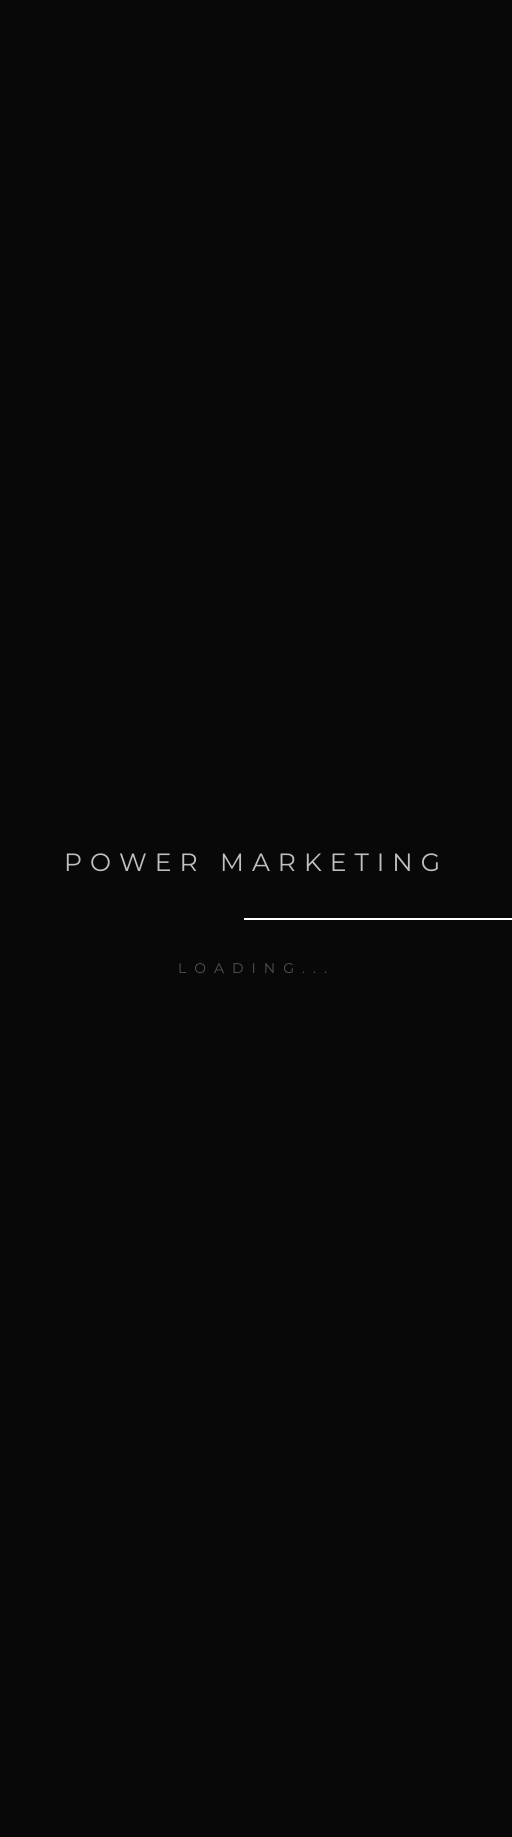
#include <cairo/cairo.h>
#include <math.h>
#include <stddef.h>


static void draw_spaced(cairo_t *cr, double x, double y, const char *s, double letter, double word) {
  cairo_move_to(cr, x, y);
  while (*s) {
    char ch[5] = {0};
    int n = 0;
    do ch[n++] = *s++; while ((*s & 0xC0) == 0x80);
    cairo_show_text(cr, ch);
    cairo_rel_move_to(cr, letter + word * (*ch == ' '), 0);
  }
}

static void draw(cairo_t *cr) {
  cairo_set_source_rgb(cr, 9 / 255.0, 8 / 255.0, 8 / 255.0);
  cairo_paint(cr);
  cairo_set_source_rgb(cr, 1, 1, 1);
  cairo_rectangle(cr, 244, 918, 268, 2);
  cairo_fill(cr);
  cairo_select_font_face(cr, "Montserrat Thin", CAIRO_FONT_SLANT_NORMAL, CAIRO_FONT_WEIGHT_NORMAL);
  cairo_set_font_size(cr, 25);
  cairo_set_source_rgb(cr, 192 / 255.0, 192 / 255.0, 192 / 255.0);
  draw_spaced(cr, 64, 871, "POWER MARKETING", 8, 0);
  cairo_set_font_size(cr, 14);
  cairo_set_source_rgb(cr, 82 / 255.0, 82 / 255.0, 82 / 255.0);
  draw_spaced(cr, 178, 973, "LOADING...", 8, 0);
}

int main(void) {
  cairo_surface_t *surface = cairo_image_surface_create(CAIRO_FORMAT_RGB24, 512, 1837);
  cairo_t *cr = cairo_create(surface);
  cairo_font_options_t *options = cairo_font_options_create();
  cairo_font_options_set_hint_metrics(options, CAIRO_HINT_METRICS_OFF);
  cairo_font_options_set_hint_style(options, CAIRO_HINT_STYLE_NONE);
  cairo_set_font_options(cr, options);
  cairo_set_miter_limit(cr, 4);
  draw(cr);
  cairo_surface_write_to_png(surface, "out.png");
  cairo_font_options_destroy(options);
  cairo_destroy(cr);
  cairo_surface_destroy(surface);
  return 0;
}
